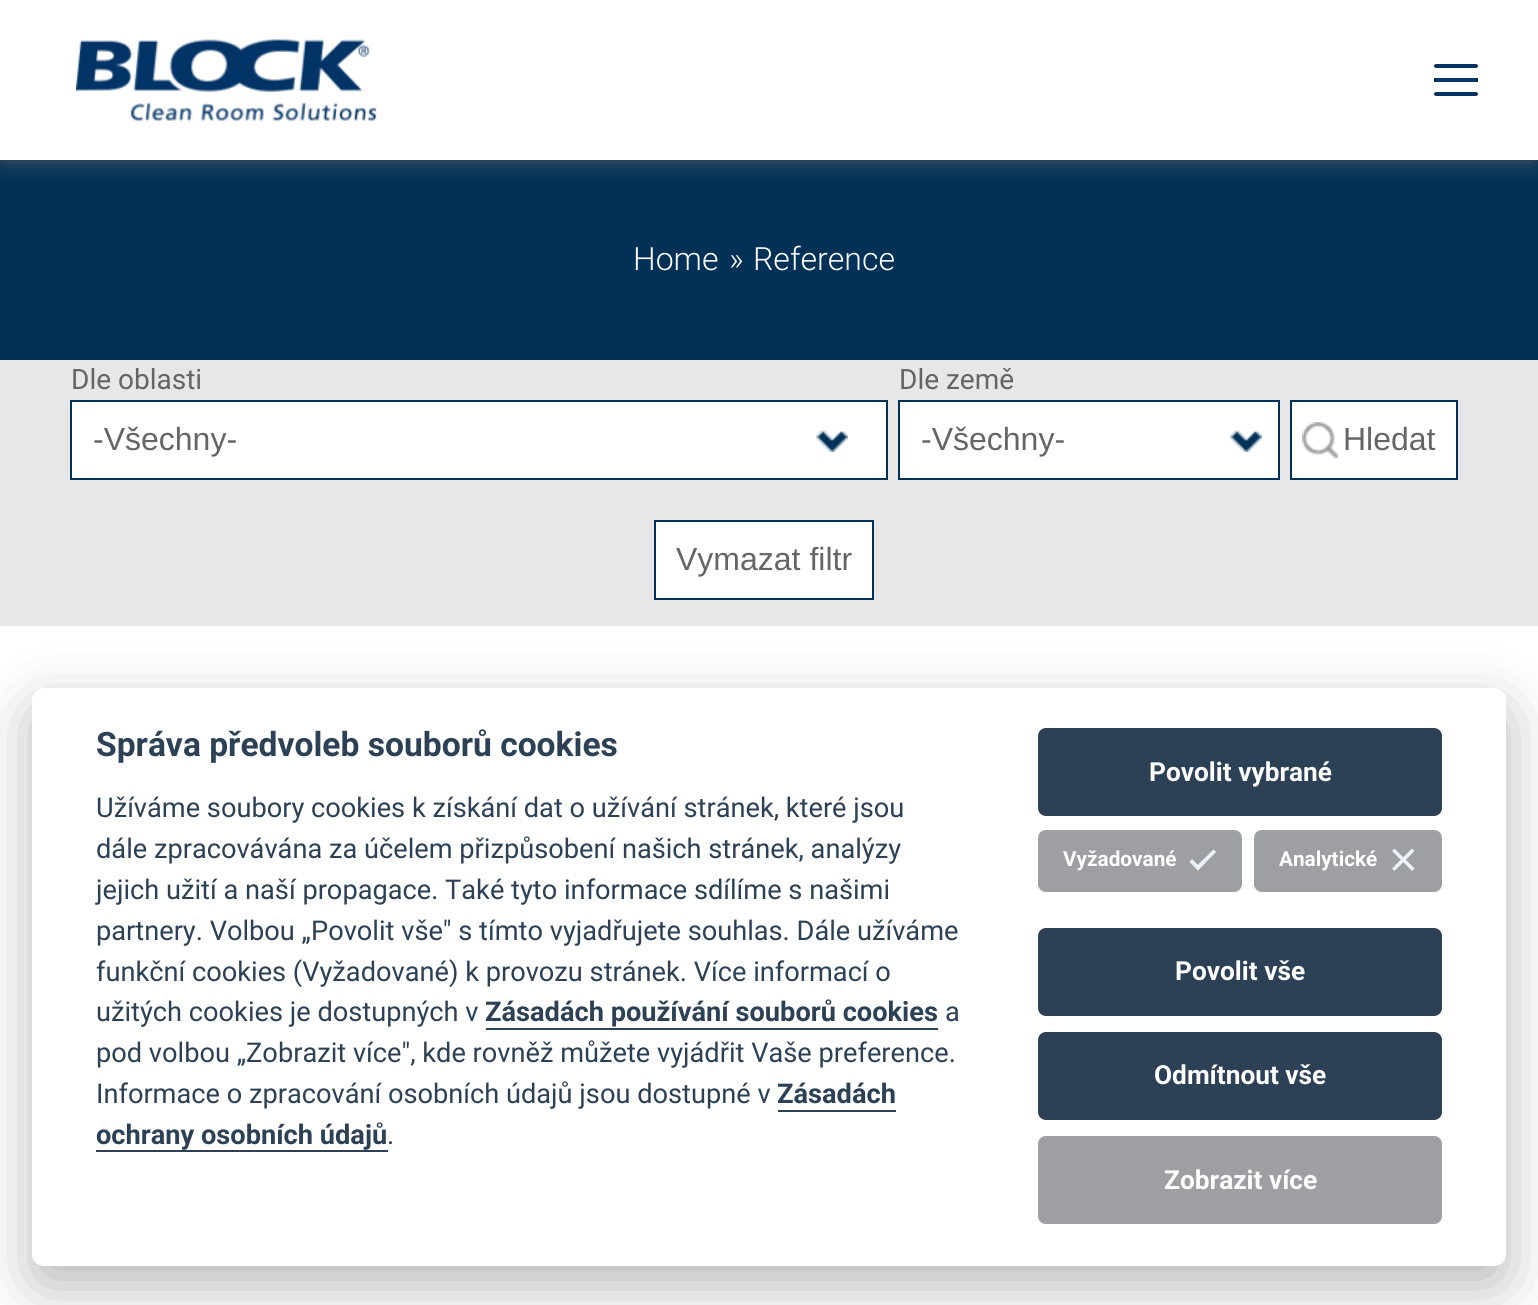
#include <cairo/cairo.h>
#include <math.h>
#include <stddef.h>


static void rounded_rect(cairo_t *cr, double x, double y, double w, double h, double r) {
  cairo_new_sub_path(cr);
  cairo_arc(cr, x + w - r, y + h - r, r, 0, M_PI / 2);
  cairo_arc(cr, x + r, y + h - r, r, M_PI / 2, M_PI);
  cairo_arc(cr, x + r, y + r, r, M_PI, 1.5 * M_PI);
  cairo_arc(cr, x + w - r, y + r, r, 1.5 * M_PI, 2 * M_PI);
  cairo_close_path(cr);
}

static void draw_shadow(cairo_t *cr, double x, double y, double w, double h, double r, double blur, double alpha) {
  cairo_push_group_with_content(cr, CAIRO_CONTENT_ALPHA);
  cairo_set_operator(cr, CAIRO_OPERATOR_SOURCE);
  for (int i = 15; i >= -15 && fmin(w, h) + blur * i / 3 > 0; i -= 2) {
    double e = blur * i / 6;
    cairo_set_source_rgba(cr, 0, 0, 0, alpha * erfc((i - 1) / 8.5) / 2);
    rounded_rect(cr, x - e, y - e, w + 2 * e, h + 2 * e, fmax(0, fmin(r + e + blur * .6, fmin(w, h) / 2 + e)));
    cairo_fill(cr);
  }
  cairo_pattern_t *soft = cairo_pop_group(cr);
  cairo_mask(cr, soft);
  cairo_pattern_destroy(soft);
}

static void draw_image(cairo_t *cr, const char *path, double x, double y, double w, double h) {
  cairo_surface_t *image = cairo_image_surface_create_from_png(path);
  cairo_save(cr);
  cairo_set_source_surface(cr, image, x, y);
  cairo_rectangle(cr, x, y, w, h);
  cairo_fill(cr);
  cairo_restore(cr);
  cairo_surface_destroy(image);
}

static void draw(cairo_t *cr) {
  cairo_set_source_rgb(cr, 1, 1, 1);
  cairo_paint(cr);
  cairo_set_source_rgb(cr, 1 / 255.0, 49 / 255.0, 87 / 255.0);
  cairo_rectangle(cr, 0, 160, 1538, 200);
  cairo_fill(cr);
  cairo_save(cr);
  cairo_rectangle(cr, 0, 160, 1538, 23);
  cairo_clip(cr);
  cairo_set_source_rgb(cr, 101 / 255.0, 101 / 255.0, 101 / 255.0);
  draw_shadow(cr, 4, 6, 1530, 152, 0, 12, 1);
  cairo_restore(cr);
  draw_image(cr, "images/1.png", 76, 39, 301, 82);
  cairo_set_source_rgb(cr, 0, 51 / 255.0, 102 / 255.0);
  cairo_rectangle(cr, 1434, 78, 44, 4);
  cairo_fill(cr);
  rounded_rect(cr, 1434, 64, 44, 4, 2);
  cairo_fill(cr);
  rounded_rect(cr, 1434, 92, 44, 4, 2);
  cairo_fill(cr);
  cairo_set_source_rgb(cr, 231 / 255.0, 231 / 255.0, 231 / 255.0);
  cairo_rectangle(cr, 0, 360, 1538, 266);
  cairo_fill(cr);
  cairo_set_source_rgb(cr, 1, 1, 1);
  cairo_rectangle(cr, 72, 402, 814, 76);
  cairo_fill(cr);
  draw_image(cr, "images/2.png", 816, 430, 32, 22);
  cairo_rectangle(cr, 71, 401, 816, 78);
  cairo_set_source_rgb(cr, 1 / 255.0, 49 / 255.0, 87 / 255.0);
  cairo_stroke(cr);
  cairo_set_source_rgb(cr, 1, 1, 1);
  cairo_rectangle(cr, 900, 402, 378, 76);
  cairo_fill(cr);
  draw_image(cr, "images/2.png", 1230, 430, 32, 22);
  cairo_rectangle(cr, 899, 401, 380, 78);
  cairo_set_source_rgb(cr, 1 / 255.0, 49 / 255.0, 87 / 255.0);
  cairo_stroke(cr);
  cairo_set_source_rgb(cr, 1, 1, 1);
  cairo_rectangle(cr, 1292, 402, 164, 76);
  cairo_fill(cr);
  draw_image(cr, "images/3.png", 1302, 422, 36, 36);
  cairo_rectangle(cr, 1291, 401, 166, 78);
  cairo_set_source_rgb(cr, 1 / 255.0, 49 / 255.0, 87 / 255.0);
  cairo_stroke(cr);
  cairo_set_source_rgb(cr, 1, 1, 1);
  cairo_rectangle(cr, 655, 521, 218, 78);
  cairo_fill_preserve(cr);
  cairo_set_source_rgb(cr, 1 / 255.0, 49 / 255.0, 87 / 255.0);
  cairo_stroke(cr);
  cairo_set_source_rgb(cr, 2 / 255.0, 2 / 255.0, 3 / 255.0);
  draw_shadow(cr, 32, 708, 1474, 578, 12, 30, 0.28);
  cairo_set_source_rgb(cr, 1, 1, 1);
  rounded_rect(cr, 32, 688, 1474, 578, 12);
  cairo_fill(cr);
  cairo_set_source_rgb(cr, 45 / 255.0, 65 / 255.0, 86 / 255.0);
  cairo_rectangle(cr, 486, 1028, 452, 2);
  cairo_fill(cr);
  cairo_rectangle(cr, 778, 1110, 118, 2);
  cairo_fill(cr);
  cairo_rectangle(cr, 96, 1150, 292, 2);
  cairo_fill(cr);
  rounded_rect(cr, 1039, 729, 402, 86, 7);
  cairo_fill_preserve(cr);
  cairo_stroke(cr);
  cairo_set_source_rgb(cr, 157 / 255.0, 159 / 255.0, 162 / 255.0);
  rounded_rect(cr, 1039, 831, 202, 60, 7);
  cairo_fill_preserve(cr);
  cairo_stroke(cr);
  cairo_set_source_rgb(cr, 236 / 255.0, 242 / 255.0, 250 / 255.0);
  cairo_new_path(cr);
  cairo_move_to(cr, 1213.5, 849.5);
  cairo_line_to(cr, 1216, 852);
  cairo_line_to(cr, 1198, 870.5);
  cairo_line_to(cr, 1195, 867.5);
  cairo_close_path(cr);
  cairo_fill(cr);
  cairo_new_path(cr);
  cairo_move_to(cr, 1192, 859);
  cairo_line_to(cr, 1200.5, 867.5);
  cairo_line_to(cr, 1198, 870.5);
  cairo_line_to(cr, 1189.5, 862);
  cairo_close_path(cr);
  cairo_fill(cr);
  cairo_set_source_rgb(cr, 157 / 255.0, 159 / 255.0, 162 / 255.0);
  rounded_rect(cr, 1255, 831, 186, 60, 7);
  cairo_fill_preserve(cr);
  cairo_stroke(cr);
  cairo_set_source_rgb(cr, 236 / 255.0, 242 / 255.0, 250 / 255.0);
  cairo_new_path(cr);
  cairo_move_to(cr, 1412, 848.5);
  cairo_line_to(cr, 1414.5, 851);
  cairo_line_to(cr, 1394.5, 871);
  cairo_line_to(cr, 1392, 868.5);
  cairo_close_path(cr);
  cairo_fill(cr);
  cairo_new_path(cr);
  cairo_move_to(cr, 1392, 851);
  cairo_line_to(cr, 1394.5, 848.5);
  cairo_line_to(cr, 1414.5, 868.5);
  cairo_line_to(cr, 1412, 871);
  cairo_close_path(cr);
  cairo_fill(cr);
  cairo_set_source_rgb(cr, 45 / 255.0, 65 / 255.0, 86 / 255.0);
  rounded_rect(cr, 1039, 929, 402, 86, 7);
  cairo_fill_preserve(cr);
  cairo_stroke(cr);
  rounded_rect(cr, 1039, 1033, 402, 86, 7);
  cairo_fill_preserve(cr);
  cairo_stroke(cr);
  cairo_set_source_rgb(cr, 157 / 255.0, 159 / 255.0, 162 / 255.0);
  rounded_rect(cr, 1039, 1137, 402, 86, 7);
  cairo_fill_preserve(cr);
  cairo_stroke(cr);
  cairo_select_font_face(cr, "Roboto Light", CAIRO_FONT_SLANT_NORMAL, CAIRO_FONT_WEIGHT_NORMAL);
  cairo_set_font_size(cr, 32);
  cairo_set_source_rgb(cr, 1, 1, 1);
  cairo_move_to(cr, 633, 270);
  cairo_show_text(cr, "Home");
  cairo_move_to(cr, 729, 270);
  cairo_show_text(cr, "»");
  cairo_move_to(cr, 753, 270);
  cairo_show_text(cr, "Reference");
  cairo_select_font_face(cr, "Roboto", CAIRO_FONT_SLANT_NORMAL, CAIRO_FONT_WEIGHT_NORMAL);
  cairo_set_font_size(cr, 28);
  cairo_set_source_rgb(cr, 101 / 255.0, 101 / 255.0, 101 / 255.0);
  cairo_move_to(cr, 71, 389);
  cairo_show_text(cr, "Dle oblasti");
  cairo_select_font_face(cr, "Liberation Sans", CAIRO_FONT_SLANT_NORMAL, CAIRO_FONT_WEIGHT_NORMAL);
  cairo_set_font_size(cr, 32);
  cairo_move_to(cr, 93, 450);
  cairo_show_text(cr, "-Všechny-");
  cairo_select_font_face(cr, "Roboto", CAIRO_FONT_SLANT_NORMAL, CAIRO_FONT_WEIGHT_NORMAL);
  cairo_set_font_size(cr, 28);
  cairo_move_to(cr, 899, 389);
  cairo_show_text(cr, "Dle země");
  cairo_select_font_face(cr, "Liberation Sans", CAIRO_FONT_SLANT_NORMAL, CAIRO_FONT_WEIGHT_NORMAL);
  cairo_set_font_size(cr, 32);
  cairo_move_to(cr, 921, 450);
  cairo_show_text(cr, "-Všechny-");
  cairo_move_to(cr, 1343, 450);
  cairo_show_text(cr, "Hledat");
  cairo_move_to(cr, 676, 570);
  cairo_show_text(cr, "Vymazat filtr");
  cairo_select_font_face(cr, "Roboto", CAIRO_FONT_SLANT_NORMAL, CAIRO_FONT_WEIGHT_BOLD);
  cairo_set_font_size(cr, 33.6);
  cairo_set_source_rgb(cr, 45 / 255.0, 65 / 255.0, 86 / 255.0);
  cairo_move_to(cr, 96, 756);
  cairo_show_text(cr, "Správa předvoleb souborů cookies");
  cairo_select_font_face(cr, "Roboto", CAIRO_FONT_SLANT_NORMAL, CAIRO_FONT_WEIGHT_NORMAL);
  cairo_set_font_size(cr, 27.2);
  cairo_move_to(cr, 96, 817);
  cairo_show_text(cr, "Užíváme soubory cookies k získání dat o užívání stránek, které jsou");
  cairo_move_to(cr, 96, 858);
  cairo_show_text(cr, "dále zpracovávána za účelem přizpůsobení našich stránek, analýzy");
  cairo_move_to(cr, 96, 899);
  cairo_show_text(cr, "jejich užití a naší propagace. Také tyto informace sdílíme s našimi");
  cairo_move_to(cr, 96, 940);
  cairo_show_text(cr, "partnery. Volbou „Povolit vše\" s tímto vyjadřujete souhlas. Dále užíváme");
  cairo_move_to(cr, 96, 981);
  cairo_show_text(cr, "funkční cookies (Vyžadované) k provozu stránek. Více informací o");
  cairo_move_to(cr, 96, 1021);
  cairo_show_text(cr, "užitých cookies je dostupných v");
  cairo_select_font_face(cr, "Roboto", CAIRO_FONT_SLANT_NORMAL, CAIRO_FONT_WEIGHT_BOLD);
  cairo_move_to(cr, 485, 1021);
  cairo_show_text(cr, "Zásadách používání souborů cookies");
  cairo_select_font_face(cr, "Roboto", CAIRO_FONT_SLANT_NORMAL, CAIRO_FONT_WEIGHT_NORMAL);
  cairo_move_to(cr, 945, 1021);
  cairo_show_text(cr, "a");
  cairo_move_to(cr, 96, 1062);
  cairo_show_text(cr, "pod volbou „Zobrazit více\", kde rovněž můžete vyjádřit Vaše preference.");
  cairo_move_to(cr, 96, 1103);
  cairo_show_text(cr, "Informace o zpracování osobních údajů jsou dostupné v");
  cairo_select_font_face(cr, "Roboto", CAIRO_FONT_SLANT_NORMAL, CAIRO_FONT_WEIGHT_BOLD);
  cairo_move_to(cr, 777, 1103);
  cairo_show_text(cr, "Zásadách");
  cairo_move_to(cr, 96, 1144);
  cairo_show_text(cr, "ochrany osobních údajů");
  cairo_select_font_face(cr, "Roboto", CAIRO_FONT_SLANT_NORMAL, CAIRO_FONT_WEIGHT_NORMAL);
  cairo_move_to(cr, 387, 1144);
  cairo_show_text(cr, ".");
  cairo_select_font_face(cr, "Roboto", CAIRO_FONT_SLANT_NORMAL, CAIRO_FONT_WEIGHT_BOLD);
  cairo_set_font_size(cr, 26.25);
  cairo_set_source_rgb(cr, 1, 1, 1);
  cairo_move_to(cr, 1149, 781);
  cairo_show_text(cr, "Povolit vybrané");
  cairo_set_font_size(cr, 20.75);
  cairo_move_to(cr, 1063, 866);
  cairo_show_text(cr, "Vyžadované");
  cairo_move_to(cr, 1279, 866);
  cairo_show_text(cr, "Analytické");
  cairo_set_font_size(cr, 26.25);
  cairo_move_to(cr, 1175, 980);
  cairo_show_text(cr, "Povolit vše");
  cairo_move_to(cr, 1154, 1084);
  cairo_show_text(cr, "Odmítnout vše");
  cairo_move_to(cr, 1164, 1189);
  cairo_show_text(cr, "Zobrazit více");
}

int main(void) {
  cairo_surface_t *surface = cairo_image_surface_create(CAIRO_FORMAT_RGB24, 1538, 1305);
  cairo_t *cr = cairo_create(surface);
  cairo_font_options_t *options = cairo_font_options_create();
  cairo_font_options_set_hint_metrics(options, CAIRO_HINT_METRICS_OFF);
  cairo_font_options_set_hint_style(options, CAIRO_HINT_STYLE_NONE);
  cairo_set_font_options(cr, options);
  cairo_set_miter_limit(cr, 4);
  draw(cr);
  cairo_surface_write_to_png(surface, "out.png");
  cairo_font_options_destroy(options);
  cairo_destroy(cr);
  cairo_surface_destroy(surface);
  return 0;
}
